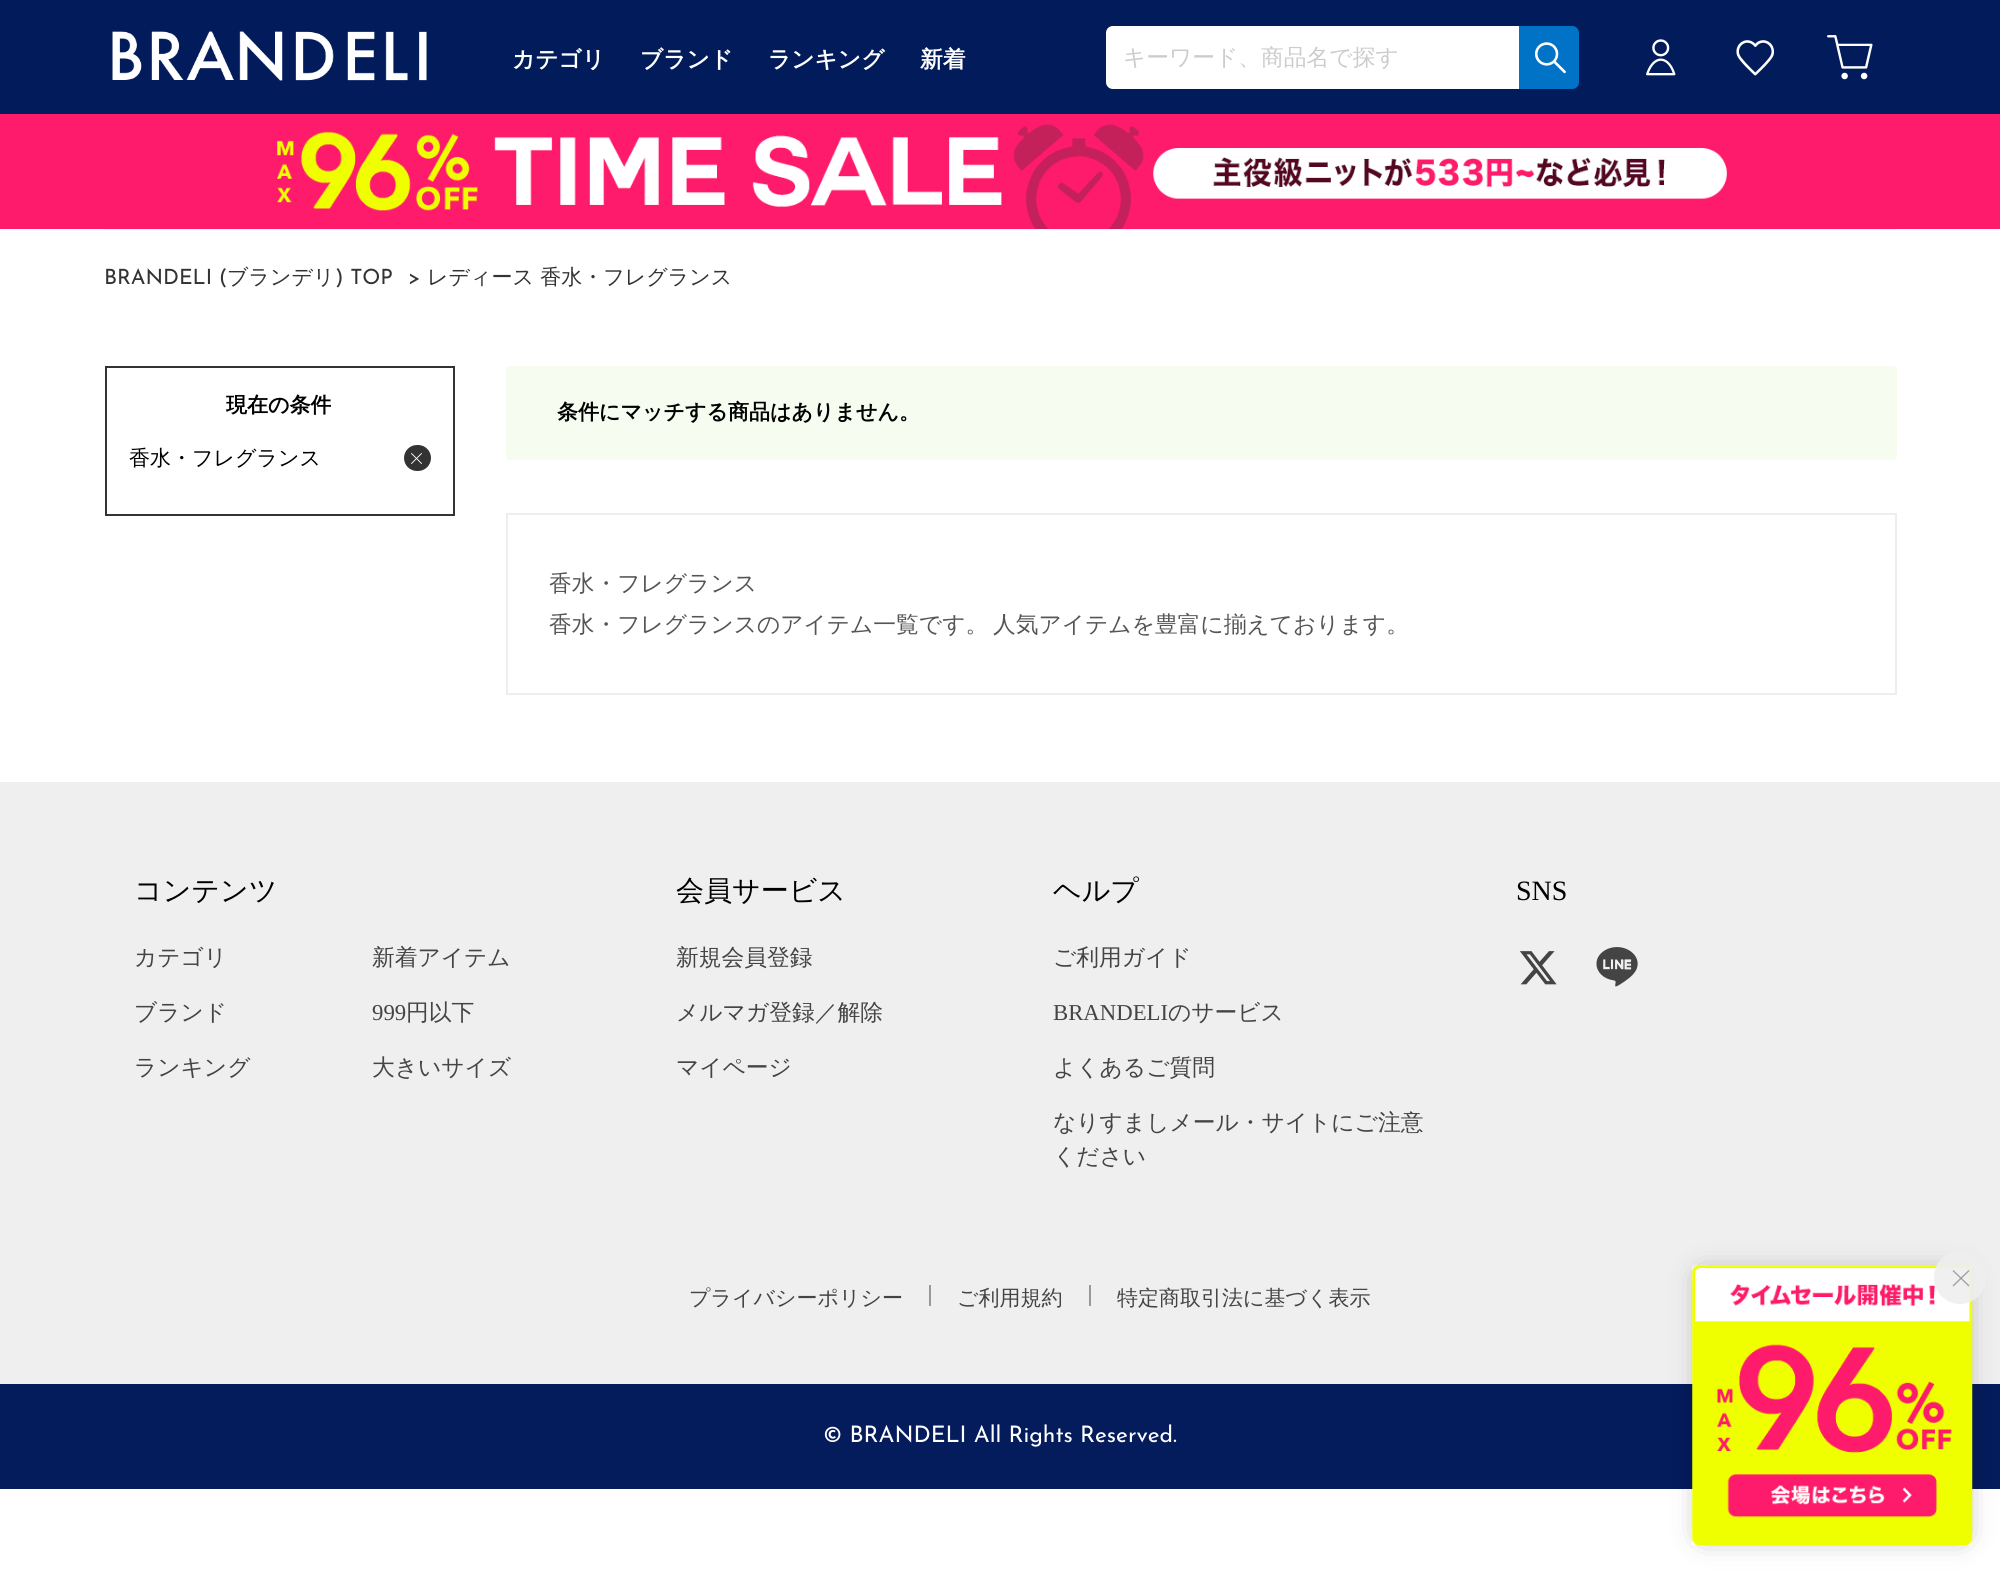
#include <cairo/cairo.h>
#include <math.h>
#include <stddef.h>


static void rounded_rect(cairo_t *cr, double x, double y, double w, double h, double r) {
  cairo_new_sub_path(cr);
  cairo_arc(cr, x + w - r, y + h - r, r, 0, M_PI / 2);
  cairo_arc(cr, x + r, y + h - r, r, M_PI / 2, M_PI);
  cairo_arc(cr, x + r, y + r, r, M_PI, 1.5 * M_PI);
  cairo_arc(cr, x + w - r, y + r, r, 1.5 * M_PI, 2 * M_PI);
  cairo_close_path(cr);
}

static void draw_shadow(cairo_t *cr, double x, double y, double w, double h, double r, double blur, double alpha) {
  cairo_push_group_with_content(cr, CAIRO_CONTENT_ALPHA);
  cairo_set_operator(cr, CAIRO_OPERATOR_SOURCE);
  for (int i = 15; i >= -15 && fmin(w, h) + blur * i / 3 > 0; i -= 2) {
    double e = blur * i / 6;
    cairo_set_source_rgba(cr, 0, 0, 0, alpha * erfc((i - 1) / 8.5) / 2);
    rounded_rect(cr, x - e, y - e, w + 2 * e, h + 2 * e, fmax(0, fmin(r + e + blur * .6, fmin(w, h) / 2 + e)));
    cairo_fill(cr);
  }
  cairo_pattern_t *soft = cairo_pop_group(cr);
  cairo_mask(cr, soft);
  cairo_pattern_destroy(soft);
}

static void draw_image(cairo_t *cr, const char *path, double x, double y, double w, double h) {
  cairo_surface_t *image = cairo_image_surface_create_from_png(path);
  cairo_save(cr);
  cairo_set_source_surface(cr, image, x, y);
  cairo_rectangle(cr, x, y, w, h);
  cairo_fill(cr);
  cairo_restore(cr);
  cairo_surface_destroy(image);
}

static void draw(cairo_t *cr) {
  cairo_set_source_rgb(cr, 1, 1, 1);
  cairo_paint(cr);
  cairo_set_source_rgb(cr, 2 / 255.0, 27 / 255.0, 91 / 255.0);
  cairo_rectangle(cr, 0, 0, 2000, 114);
  cairo_fill(cr);
  draw_image(cr, "images/1.png", 112, 31, 315, 50);
  cairo_set_source_rgb(cr, 1, 1, 1);
  cairo_new_path(cr);
  cairo_move_to(cr, 1113, 26);
  cairo_line_to(cr, 1568, 26);
  cairo_curve_to(cr, 1574, 26, 1579, 31, 1579, 37);
  cairo_line_to(cr, 1579, 78);
  cairo_curve_to(cr, 1579, 84, 1574, 89, 1568, 89);
  cairo_line_to(cr, 1113, 89);
  cairo_curve_to(cr, 1109, 89, 1106, 86, 1106, 82);
  cairo_line_to(cr, 1106, 33);
  cairo_curve_to(cr, 1106, 29, 1109, 26, 1113, 26);
  cairo_close_path(cr);
  cairo_fill(cr);
  cairo_set_source_rgb(cr, 0, 115 / 255.0, 198 / 255.0);
  cairo_new_path(cr);
  cairo_move_to(cr, 1520, 27);
  cairo_line_to(cr, 1572, 27);
  cairo_curve_to(cr, 1575.5, 27, 1578, 29.5, 1578, 33);
  cairo_line_to(cr, 1578, 82);
  cairo_curve_to(cr, 1578, 85.5, 1575.5, 88, 1572, 88);
  cairo_line_to(cr, 1520, 88);
  cairo_close_path(cr);
  cairo_fill_preserve(cr);
  cairo_stroke(cr);
  draw_image(cr, "images/2.png", 1534, 42, 32, 32);
  draw_image(cr, "images/3.png", 1646, 39, 30, 37);
  draw_image(cr, "images/4.png", 1736, 40, 38, 36);
  draw_image(cr, "images/5.png", 1827, 35, 46, 45);
  cairo_set_source_rgb(cr, 1, 27 / 255.0, 108 / 255.0);
  cairo_rectangle(cr, 0, 114, 2000, 115);
  cairo_fill(cr);
  draw_image(cr, "images/6.png", 105, 114, 1792, 116);
  cairo_set_source_rgb(cr, 239 / 255.0, 239 / 255.0, 239 / 255.0);
  cairo_rectangle(cr, 0, 782, 2000, 602);
  cairo_fill(cr);
  cairo_set_source_rgb(cr, 4 / 255.0, 27 / 255.0, 92 / 255.0);
  cairo_rectangle(cr, 0, 1384, 2000, 105);
  cairo_fill(cr);
  cairo_save(cr);
  cairo_set_fill_rule(cr, CAIRO_FILL_RULE_EVEN_ODD);
  cairo_new_path(cr);
  cairo_move_to(cr, 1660, 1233);
  cairo_line_to(cr, 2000, 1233);
  cairo_line_to(cr, 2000, 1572);
  cairo_line_to(cr, 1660, 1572);
  cairo_close_path(cr);
  cairo_move_to(cr, 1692, 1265);
  cairo_line_to(cr, 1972, 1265);
  cairo_line_to(cr, 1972, 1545);
  cairo_line_to(cr, 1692, 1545);
  cairo_close_path(cr);
  cairo_clip(cr);
  cairo_set_source_rgb(cr, 0, 0, 0);
  draw_shadow(cr, 1703, 1276, 259, 259, 0, 14, 0.4);
  cairo_restore(cr);
  draw_image(cr, "images/7.png", 1692, 1265, 281, 281);
  cairo_set_source_rgba(cr, 238 / 255.0, 238 / 255.0, 238 / 255.0, 0.9);
  rounded_rect(cr, 1934, 1251, 52, 53, 26);
  cairo_fill(cr);
  cairo_new_path(cr);
  cairo_move_to(cr, 1969, 1286);
  cairo_line_to(cr, 1953, 1270.5);
  cairo_set_source_rgb(cr, 163 / 255.0, 163 / 255.0, 163 / 255.0);
  cairo_set_line_width(cr, 1.4);
  cairo_stroke(cr);
  cairo_new_path(cr);
  cairo_move_to(cr, 1969, 1270.5);
  cairo_line_to(cr, 1953, 1286);
  cairo_set_source_rgba(cr, 153 / 255.0, 153 / 255.0, 153 / 255.0, 0.9);
  cairo_stroke(cr);
  cairo_rectangle(cr, 106, 367, 348, 148);
  cairo_set_source_rgb(cr, 51 / 255.0, 51 / 255.0, 51 / 255.0);
  cairo_set_line_width(cr, 2);
  cairo_stroke(cr);
  rounded_rect(cr, 404, 445, 27, 26, 13);
  cairo_fill(cr);
  draw_image(cr, "images/8.png", 411, 453, 11, 11);
  cairo_set_source_rgb(cr, 247 / 255.0, 252 / 255.0, 240 / 255.0);
  rounded_rect(cr, 506, 366, 1391, 94, 4);
  cairo_fill(cr);
  cairo_rectangle(cr, 507, 514, 1389, 180);
  cairo_set_source_rgb(cr, 238 / 255.0, 238 / 255.0, 238 / 255.0);
  cairo_stroke(cr);
  draw_image(cr, "images/9.png", 1520, 951, 37, 34);
  draw_image(cr, "images/10.png", 1596, 947, 42, 40);
  cairo_set_source_rgb(cr, 153 / 255.0, 153 / 255.0, 153 / 255.0);
  cairo_rectangle(cr, 929, 1285, 2, 21);
  cairo_fill(cr);
  cairo_rectangle(cr, 1089, 1285, 2, 21);
  cairo_fill(cr);
  cairo_select_font_face(cr, "WenQuanYi Zen Hei", CAIRO_FONT_SLANT_NORMAL, CAIRO_FONT_WEIGHT_BOLD);
  cairo_set_font_size(cr, 22.75);
  cairo_set_source_rgb(cr, 1, 1, 1);
  cairo_move_to(cr, 512, 67);
  cairo_show_text(cr, "カテゴリ");
  cairo_move_to(cr, 640, 67);
  cairo_show_text(cr, "ブランド");
  cairo_move_to(cr, 768, 67);
  cairo_show_text(cr, "ランキング");
  cairo_move_to(cr, 920, 67);
  cairo_show_text(cr, "新着");
  cairo_select_font_face(cr, "WenQuanYi Zen Hei Medium", CAIRO_FONT_SLANT_NORMAL, CAIRO_FONT_WEIGHT_NORMAL);
  cairo_set_source_rgb(cr, 204 / 255.0, 204 / 255.0, 204 / 255.0);
  cairo_move_to(cr, 1123, 65);
  cairo_show_text(cr, "キーワード、商品名で探す");
  cairo_select_font_face(cr, "Josefin Sans", CAIRO_FONT_SLANT_NORMAL, CAIRO_FONT_WEIGHT_NORMAL);
  cairo_set_font_size(cr, 21);
  cairo_set_source_rgb(cr, 51 / 255.0, 51 / 255.0, 51 / 255.0);
  cairo_move_to(cr, 104, 284);
  cairo_show_text(cr, "BRANDELI (");
  cairo_select_font_face(cr, "WenQuanYi Zen Hei Medium", CAIRO_FONT_SLANT_NORMAL, CAIRO_FONT_WEIGHT_NORMAL);
  cairo_move_to(cr, 227, 284);
  cairo_show_text(cr, "ブランデリ");
  cairo_select_font_face(cr, "Josefin Sans", CAIRO_FONT_SLANT_NORMAL, CAIRO_FONT_WEIGHT_NORMAL);
  cairo_move_to(cr, 335, 284);
  cairo_show_text(cr, ") TOP");
  cairo_move_to(cr, 408, 284);
  cairo_show_text(cr, ">");
  cairo_select_font_face(cr, "WenQuanYi Zen Hei Medium", CAIRO_FONT_SLANT_NORMAL, CAIRO_FONT_WEIGHT_NORMAL);
  cairo_move_to(cr, 427, 284);
  cairo_show_text(cr, "レディース 香水・フレグランス");
  cairo_select_font_face(cr, "WenQuanYi Zen Hei", CAIRO_FONT_SLANT_NORMAL, CAIRO_FONT_WEIGHT_BOLD);
  cairo_set_source_rgb(cr, 0, 0, 0);
  cairo_move_to(cr, 226, 412);
  cairo_show_text(cr, "現在の条件");
  cairo_select_font_face(cr, "WenQuanYi Zen Hei Medium", CAIRO_FONT_SLANT_NORMAL, CAIRO_FONT_WEIGHT_NORMAL);
  cairo_move_to(cr, 129, 465);
  cairo_show_text(cr, "香水・フレグランス");
  cairo_select_font_face(cr, "WenQuanYi Zen Hei", CAIRO_FONT_SLANT_NORMAL, CAIRO_FONT_WEIGHT_BOLD);
  cairo_move_to(cr, 557, 419);
  cairo_show_text(cr, "条件にマッチする商品はありません。");
  cairo_select_font_face(cr, "WenQuanYi Zen Hei Medium", CAIRO_FONT_SLANT_NORMAL, CAIRO_FONT_WEIGHT_NORMAL);
  cairo_set_font_size(cr, 22.75);
  cairo_set_source_rgb(cr, 85 / 255.0, 85 / 255.0, 85 / 255.0);
  cairo_move_to(cr, 549, 591);
  cairo_show_text(cr, "香水・フレグランス");
  cairo_move_to(cr, 549, 632);
  cairo_show_text(cr, "香水・フレグランスのアイテム一覧です。");
  cairo_move_to(cr, 993, 632);
  cairo_show_text(cr, "人気アイテムを豊富に揃えております。");
  cairo_set_font_size(cr, 28);
  cairo_set_source_rgb(cr, 0, 0, 0);
  cairo_move_to(cr, 134, 900);
  cairo_show_text(cr, "コンテンツ");
  cairo_set_font_size(cr, 22.75);
  cairo_set_source_rgb(cr, 68 / 255.0, 68 / 255.0, 68 / 255.0);
  cairo_move_to(cr, 134, 965);
  cairo_show_text(cr, "カテゴリ");
  cairo_move_to(cr, 372, 965);
  cairo_show_text(cr, "新着アイテム");
  cairo_move_to(cr, 134, 1020);
  cairo_show_text(cr, "ブランド");
  cairo_select_font_face(cr, "Liberation Serif", CAIRO_FONT_SLANT_NORMAL, CAIRO_FONT_WEIGHT_NORMAL);
  cairo_move_to(cr, 372, 1020);
  cairo_show_text(cr, "999");
  cairo_select_font_face(cr, "WenQuanYi Zen Hei Medium", CAIRO_FONT_SLANT_NORMAL, CAIRO_FONT_WEIGHT_NORMAL);
  cairo_move_to(cr, 406, 1020);
  cairo_show_text(cr, "円以下");
  cairo_move_to(cr, 134, 1075);
  cairo_show_text(cr, "ランキング");
  cairo_move_to(cr, 372, 1075);
  cairo_show_text(cr, "大きいサイズ");
  cairo_set_font_size(cr, 28);
  cairo_set_source_rgb(cr, 0, 0, 0);
  cairo_move_to(cr, 676, 900);
  cairo_show_text(cr, "会員サービス");
  cairo_set_font_size(cr, 22.75);
  cairo_set_source_rgb(cr, 68 / 255.0, 68 / 255.0, 68 / 255.0);
  cairo_move_to(cr, 676, 965);
  cairo_show_text(cr, "新規会員登録");
  cairo_move_to(cr, 676, 1020);
  cairo_show_text(cr, "メルマガ登録／解除");
  cairo_move_to(cr, 676, 1075);
  cairo_show_text(cr, "マイページ");
  cairo_set_font_size(cr, 28);
  cairo_set_source_rgb(cr, 0, 0, 0);
  cairo_move_to(cr, 1053, 900);
  cairo_show_text(cr, "ヘルプ");
  cairo_set_font_size(cr, 22.75);
  cairo_set_source_rgb(cr, 68 / 255.0, 68 / 255.0, 68 / 255.0);
  cairo_move_to(cr, 1053, 965);
  cairo_show_text(cr, "ご利用ガイド");
  cairo_select_font_face(cr, "Liberation Serif", CAIRO_FONT_SLANT_NORMAL, CAIRO_FONT_WEIGHT_NORMAL);
  cairo_move_to(cr, 1053, 1020);
  cairo_show_text(cr, "BRANDELI");
  cairo_select_font_face(cr, "WenQuanYi Zen Hei Medium", CAIRO_FONT_SLANT_NORMAL, CAIRO_FONT_WEIGHT_NORMAL);
  cairo_move_to(cr, 1168, 1020);
  cairo_show_text(cr, "のサービス");
  cairo_move_to(cr, 1053, 1075);
  cairo_show_text(cr, "よくあるご質問");
  cairo_move_to(cr, 1053, 1130);
  cairo_show_text(cr, "なりすましメール・サイトにご注意");
  cairo_move_to(cr, 1053, 1164);
  cairo_show_text(cr, "ください");
  cairo_select_font_face(cr, "Liberation Serif", CAIRO_FONT_SLANT_NORMAL, CAIRO_FONT_WEIGHT_NORMAL);
  cairo_set_font_size(cr, 28);
  cairo_set_source_rgb(cr, 0, 0, 0);
  cairo_move_to(cr, 1516, 900);
  cairo_show_text(cr, "SNS");
  cairo_select_font_face(cr, "WenQuanYi Zen Hei Medium", CAIRO_FONT_SLANT_NORMAL, CAIRO_FONT_WEIGHT_NORMAL);
  cairo_set_font_size(cr, 21);
  cairo_set_source_rgb(cr, 68 / 255.0, 68 / 255.0, 68 / 255.0);
  cairo_move_to(cr, 689, 1305);
  cairo_show_text(cr, "プライバシーポリシー");
  cairo_move_to(cr, 957, 1305);
  cairo_show_text(cr, "ご利用規約");
  cairo_move_to(cr, 1117, 1305);
  cairo_show_text(cr, "特定商取引法に基づく表示");
  cairo_select_font_face(cr, "Josefin Sans", CAIRO_FONT_SLANT_NORMAL, CAIRO_FONT_WEIGHT_NORMAL);
  cairo_set_font_size(cr, 22.75);
  cairo_set_source_rgb(cr, 1, 1, 1);
  cairo_move_to(cr, 823, 1442);
  cairo_show_text(cr, "© BRANDELI All Rights Reserved.");
}

int main(void) {
  cairo_surface_t *surface = cairo_image_surface_create(CAIRO_FORMAT_RGB24, 2000, 1572);
  cairo_t *cr = cairo_create(surface);
  cairo_font_options_t *options = cairo_font_options_create();
  cairo_font_options_set_hint_metrics(options, CAIRO_HINT_METRICS_OFF);
  cairo_font_options_set_hint_style(options, CAIRO_HINT_STYLE_NONE);
  cairo_set_font_options(cr, options);
  cairo_set_miter_limit(cr, 4);
  draw(cr);
  cairo_surface_write_to_png(surface, "out.png");
  cairo_font_options_destroy(options);
  cairo_destroy(cr);
  cairo_surface_destroy(surface);
  return 0;
}
